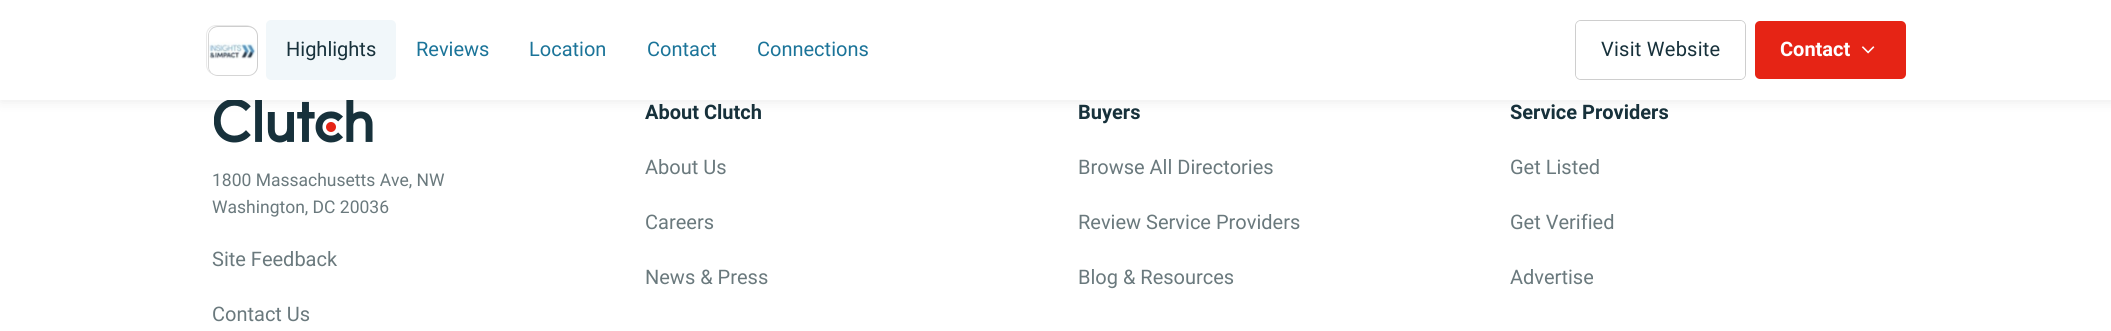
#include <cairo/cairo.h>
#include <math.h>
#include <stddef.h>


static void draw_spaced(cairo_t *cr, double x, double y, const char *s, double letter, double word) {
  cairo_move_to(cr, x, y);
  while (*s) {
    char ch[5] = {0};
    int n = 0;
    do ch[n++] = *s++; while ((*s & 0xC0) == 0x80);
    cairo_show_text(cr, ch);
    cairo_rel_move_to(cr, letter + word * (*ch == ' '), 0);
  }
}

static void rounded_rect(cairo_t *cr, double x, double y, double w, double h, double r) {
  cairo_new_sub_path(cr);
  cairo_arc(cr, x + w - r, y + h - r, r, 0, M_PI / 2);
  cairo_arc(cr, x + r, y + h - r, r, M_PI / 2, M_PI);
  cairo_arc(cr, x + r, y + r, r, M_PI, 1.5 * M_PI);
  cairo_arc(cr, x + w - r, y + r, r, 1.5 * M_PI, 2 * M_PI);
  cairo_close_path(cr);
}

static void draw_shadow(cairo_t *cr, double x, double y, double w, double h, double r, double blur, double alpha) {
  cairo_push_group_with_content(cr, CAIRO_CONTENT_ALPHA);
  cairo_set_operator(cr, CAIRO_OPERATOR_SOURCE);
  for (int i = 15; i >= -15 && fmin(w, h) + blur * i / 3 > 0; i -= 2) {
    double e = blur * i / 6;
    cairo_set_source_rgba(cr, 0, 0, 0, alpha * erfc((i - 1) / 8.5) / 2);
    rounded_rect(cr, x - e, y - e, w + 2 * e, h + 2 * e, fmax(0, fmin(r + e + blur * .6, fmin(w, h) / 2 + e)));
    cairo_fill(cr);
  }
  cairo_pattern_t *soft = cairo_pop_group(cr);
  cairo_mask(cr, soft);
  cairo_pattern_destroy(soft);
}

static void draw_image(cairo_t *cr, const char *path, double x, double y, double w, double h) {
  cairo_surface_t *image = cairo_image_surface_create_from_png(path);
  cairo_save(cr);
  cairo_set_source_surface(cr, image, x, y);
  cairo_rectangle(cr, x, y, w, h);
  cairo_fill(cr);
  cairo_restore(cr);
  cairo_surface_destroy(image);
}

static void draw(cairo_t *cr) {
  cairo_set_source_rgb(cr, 1, 1, 1);
  cairo_paint(cr);
  draw_image(cr, "images/3.png", 214, 100, 159, 43);
  cairo_set_source_rgb(cr, 23 / 255.0, 23 / 255.0, 23 / 255.0);
  draw_shadow(cr, 1, 1, 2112, 100, 0, 6, 0.1);
  cairo_set_source_rgb(cr, 1, 1, 1);
  cairo_rectangle(cr, 0, 0, 2111, 100);
  cairo_fill(cr);
  rounded_rect(cr, 206.5, 25.5, 49, 49, 9.5);
  cairo_set_source_rgb(cr, 233 / 255.0, 233 / 255.0, 233 / 255.0);
  cairo_set_line_width(cr, 1);
  cairo_stroke(cr);
  cairo_set_source_rgb(cr, 1, 1, 1);
  rounded_rect(cr, 208.5, 26.5, 49, 49, 9.5);
  cairo_fill_preserve(cr);
  cairo_set_source_rgb(cr, 206 / 255.0, 206 / 255.0, 206 / 255.0);
  cairo_stroke(cr);
  draw_image(cr, "images/1.png", 208, 28, 48, 48);
  cairo_set_source_rgb(cr, 241 / 255.0, 247 / 255.0, 250 / 255.0);
  rounded_rect(cr, 266, 20, 130, 60, 5);
  cairo_fill(cr);
  rounded_rect(cr, 1575.5, 20.5, 170, 59, 5.5);
  cairo_set_source_rgb(cr, 206 / 255.0, 206 / 255.0, 206 / 255.0);
  cairo_stroke(cr);
  cairo_set_source_rgb(cr, 1, 1, 1);
  rounded_rect(cr, 1576, 21, 169, 58, 5);
  cairo_fill(cr);
  cairo_set_source_rgb(cr, 230 / 255.0, 36 / 255.0, 21 / 255.0);
  rounded_rect(cr, 1755, 21, 151, 58, 5);
  cairo_fill(cr);
  draw_image(cr, "images/2.png", 1861, 46, 14, 8);
  cairo_select_font_face(cr, "Roboto", CAIRO_FONT_SLANT_NORMAL, CAIRO_FONT_WEIGHT_NORMAL);
  cairo_set_font_size(cr, 20);
  cairo_set_source_rgb(cr, 23 / 255.0, 49 / 255.0, 59 / 255.0);
  cairo_move_to(cr, 286, 56);
  cairo_show_text(cr, "Highlights");
  cairo_set_source_rgb(cr, 27 / 255.0, 116 / 255.0, 153 / 255.0);
  cairo_move_to(cr, 416, 56);
  cairo_show_text(cr, "Reviews");
  cairo_move_to(cr, 529, 56);
  cairo_show_text(cr, "Location");
  cairo_move_to(cr, 647, 56);
  cairo_show_text(cr, "Contact");
  cairo_move_to(cr, 757, 56);
  cairo_show_text(cr, "Connections");
  cairo_set_source_rgb(cr, 23 / 255.0, 49 / 255.0, 59 / 255.0);
  draw_spaced(cr, 1601, 56, "Visit Website", 0.25, 0);
  cairo_select_font_face(cr, "Roboto", CAIRO_FONT_SLANT_NORMAL, CAIRO_FONT_WEIGHT_BOLD);
  cairo_set_source_rgb(cr, 1, 1, 1);
  cairo_move_to(cr, 1780, 56);
  cairo_show_text(cr, "Contact");
  cairo_select_font_face(cr, "Roboto", CAIRO_FONT_SLANT_NORMAL, CAIRO_FONT_WEIGHT_NORMAL);
  cairo_set_font_size(cr, 17.5);
  cairo_set_source_rgb(cr, 106 / 255.0, 121 / 255.0, 125 / 255.0);
  cairo_move_to(cr, 212, 186);
  cairo_show_text(cr, "1800 Massachusetts Ave, NW");
  cairo_move_to(cr, 212, 213);
  cairo_show_text(cr, "Washington, DC 20036");
  cairo_set_font_size(cr, 20);
  cairo_move_to(cr, 212, 266);
  cairo_show_text(cr, "Site Feedback");
  cairo_move_to(cr, 212, 321);
  cairo_show_text(cr, "Contact Us");
  cairo_select_font_face(cr, "Roboto", CAIRO_FONT_SLANT_NORMAL, CAIRO_FONT_WEIGHT_BOLD);
  cairo_set_source_rgb(cr, 23 / 255.0, 49 / 255.0, 59 / 255.0);
  cairo_move_to(cr, 645, 119);
  cairo_show_text(cr, "About Clutch");
  cairo_select_font_face(cr, "Roboto", CAIRO_FONT_SLANT_NORMAL, CAIRO_FONT_WEIGHT_NORMAL);
  cairo_set_source_rgb(cr, 106 / 255.0, 121 / 255.0, 125 / 255.0);
  cairo_move_to(cr, 645, 174);
  cairo_show_text(cr, "About Us");
  cairo_move_to(cr, 645, 229);
  cairo_show_text(cr, "Careers");
  cairo_move_to(cr, 645, 284);
  cairo_show_text(cr, "News & Press");
  cairo_select_font_face(cr, "Roboto", CAIRO_FONT_SLANT_NORMAL, CAIRO_FONT_WEIGHT_BOLD);
  cairo_set_source_rgb(cr, 23 / 255.0, 49 / 255.0, 59 / 255.0);
  cairo_move_to(cr, 1078, 119);
  cairo_show_text(cr, "Buyers");
  cairo_select_font_face(cr, "Roboto", CAIRO_FONT_SLANT_NORMAL, CAIRO_FONT_WEIGHT_NORMAL);
  cairo_set_source_rgb(cr, 106 / 255.0, 121 / 255.0, 125 / 255.0);
  cairo_move_to(cr, 1078, 174);
  cairo_show_text(cr, "Browse All Directories");
  cairo_move_to(cr, 1078, 229);
  cairo_show_text(cr, "Review Service Providers");
  cairo_move_to(cr, 1078, 284);
  cairo_show_text(cr, "Blog & Resources");
  cairo_select_font_face(cr, "Roboto", CAIRO_FONT_SLANT_NORMAL, CAIRO_FONT_WEIGHT_BOLD);
  cairo_set_source_rgb(cr, 23 / 255.0, 49 / 255.0, 59 / 255.0);
  cairo_move_to(cr, 1510, 119);
  cairo_show_text(cr, "Service Providers");
  cairo_select_font_face(cr, "Roboto", CAIRO_FONT_SLANT_NORMAL, CAIRO_FONT_WEIGHT_NORMAL);
  cairo_set_source_rgb(cr, 106 / 255.0, 121 / 255.0, 125 / 255.0);
  cairo_move_to(cr, 1510, 174);
  cairo_show_text(cr, "Get Listed");
  cairo_move_to(cr, 1510, 229);
  cairo_show_text(cr, "Get Verified");
  cairo_move_to(cr, 1510, 284);
  cairo_show_text(cr, "Advertise");
}

int main(void) {
  cairo_surface_t *surface = cairo_image_surface_create(CAIRO_FORMAT_RGB24, 2111, 331);
  cairo_t *cr = cairo_create(surface);
  cairo_font_options_t *options = cairo_font_options_create();
  cairo_font_options_set_hint_metrics(options, CAIRO_HINT_METRICS_OFF);
  cairo_font_options_set_hint_style(options, CAIRO_HINT_STYLE_NONE);
  cairo_set_font_options(cr, options);
  cairo_set_miter_limit(cr, 4);
  draw(cr);
  cairo_surface_write_to_png(surface, "out.png");
  cairo_font_options_destroy(options);
  cairo_destroy(cr);
  cairo_surface_destroy(surface);
  return 0;
}
